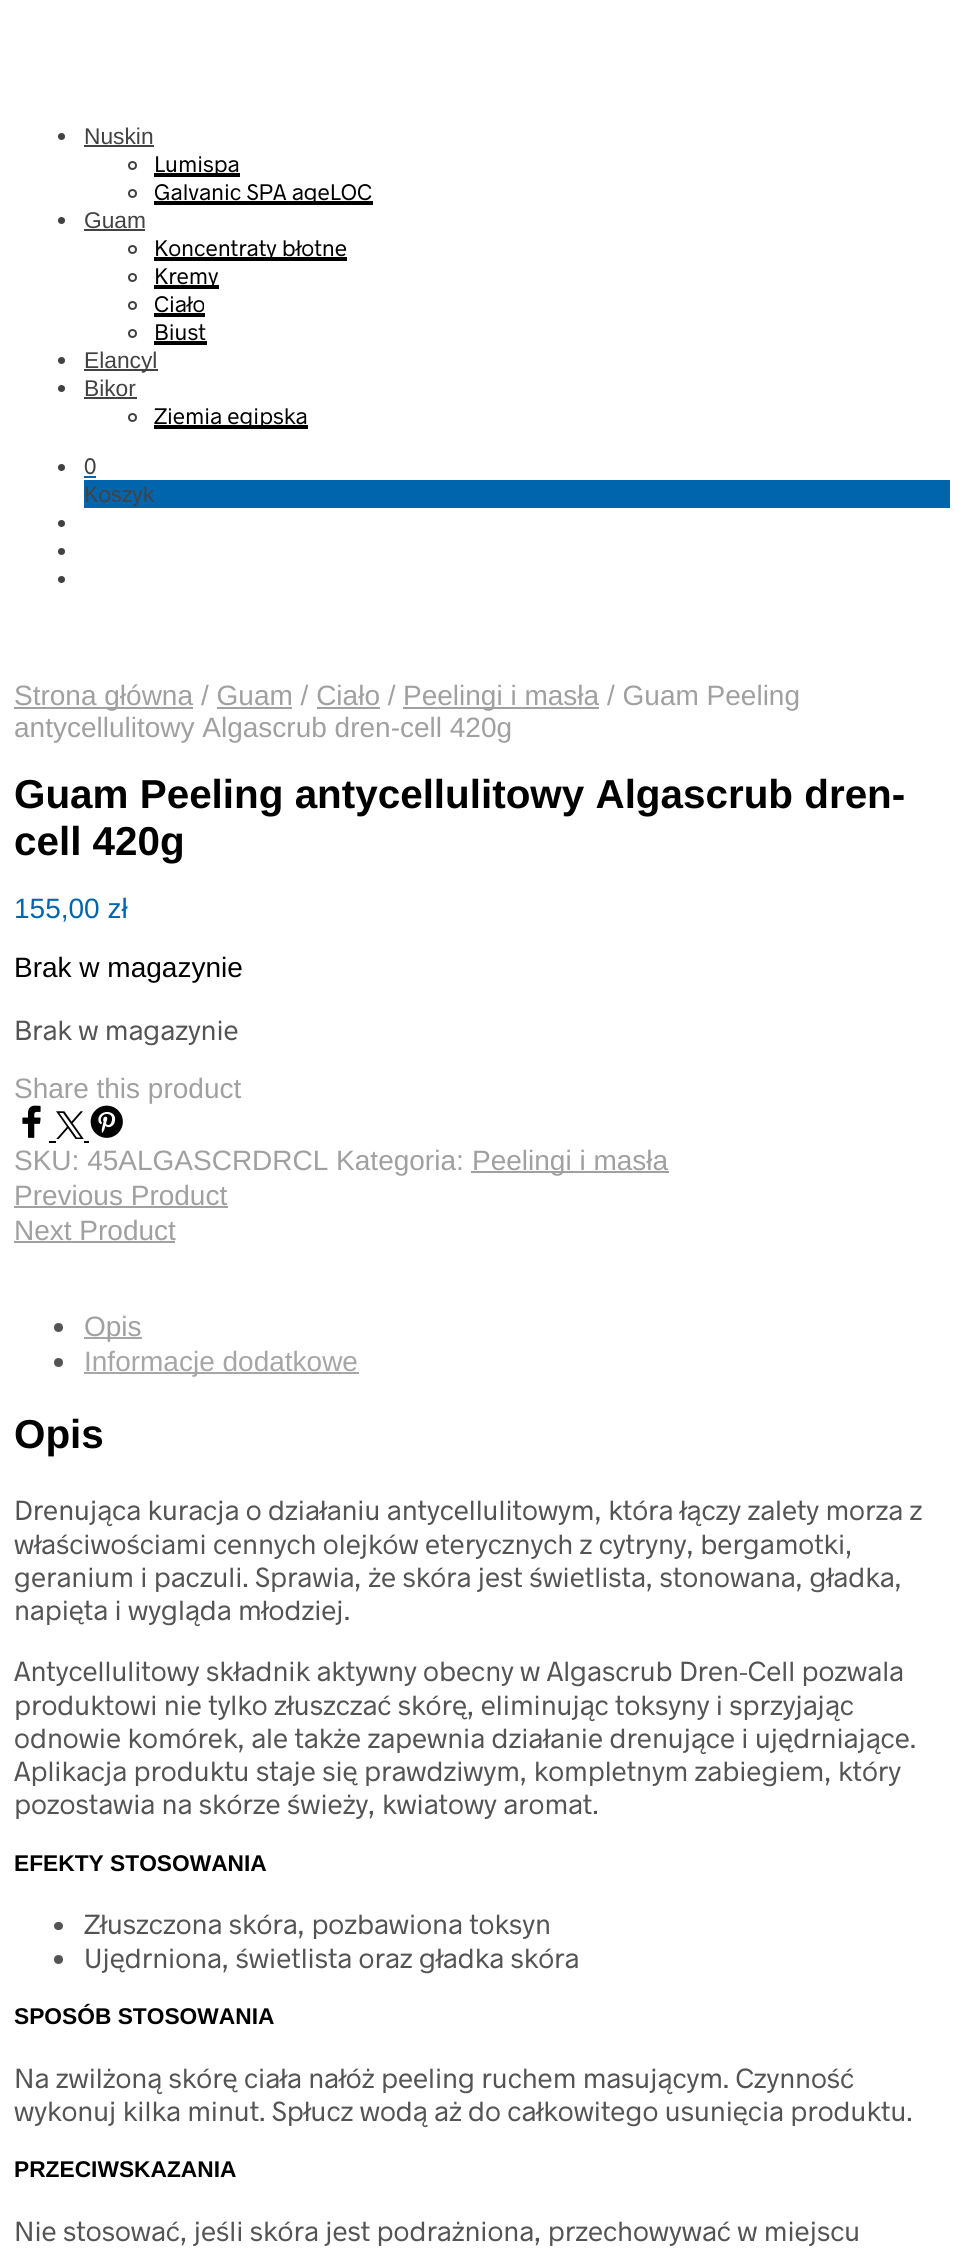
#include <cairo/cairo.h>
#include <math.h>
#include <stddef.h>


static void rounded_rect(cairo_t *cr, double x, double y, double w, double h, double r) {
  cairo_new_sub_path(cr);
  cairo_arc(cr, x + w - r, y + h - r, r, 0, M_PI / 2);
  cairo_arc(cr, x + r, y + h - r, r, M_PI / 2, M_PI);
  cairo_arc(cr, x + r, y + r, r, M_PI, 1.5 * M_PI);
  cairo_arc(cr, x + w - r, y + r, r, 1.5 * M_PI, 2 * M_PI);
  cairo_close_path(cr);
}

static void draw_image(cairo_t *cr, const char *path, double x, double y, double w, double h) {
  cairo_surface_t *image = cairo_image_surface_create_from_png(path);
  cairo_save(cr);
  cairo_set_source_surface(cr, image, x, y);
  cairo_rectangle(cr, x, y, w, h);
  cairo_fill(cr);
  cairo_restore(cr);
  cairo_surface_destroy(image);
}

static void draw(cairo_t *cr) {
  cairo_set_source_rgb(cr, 1, 1, 1);
  cairo_paint(cr);
  cairo_set_source_rgb(cr, 66 / 255.0, 66 / 255.0, 66 / 255.0);
  cairo_arc(cr, 61.5, 136.5, 3.5, 0, 2 * M_PI);
  cairo_fill(cr);
  cairo_rectangle(cr, 84, 145, 70, 2);
  cairo_fill(cr);
  cairo_arc(cr, 132.5, 165.5, 3.5, 0, 2 * M_PI);
  cairo_stroke(cr);
  cairo_set_source_rgb(cr, 0, 0, 0);
  cairo_rectangle(cr, 154, 173, 86, 4);
  cairo_fill(cr);
  cairo_arc(cr, 132.5, 193.5, 3.5, 0, 2 * M_PI);
  cairo_set_source_rgb(cr, 66 / 255.0, 66 / 255.0, 66 / 255.0);
  cairo_stroke(cr);
  cairo_set_source_rgb(cr, 0, 0, 0);
  cairo_rectangle(cr, 154, 201, 219, 4);
  cairo_fill(cr);
  cairo_set_source_rgb(cr, 66 / 255.0, 66 / 255.0, 66 / 255.0);
  cairo_arc(cr, 61.5, 220.5, 3.5, 0, 2 * M_PI);
  cairo_fill(cr);
  cairo_rectangle(cr, 84, 229, 61, 2);
  cairo_fill(cr);
  cairo_arc(cr, 132.5, 249.5, 3.5, 0, 2 * M_PI);
  cairo_stroke(cr);
  cairo_set_source_rgb(cr, 0, 0, 0);
  cairo_rectangle(cr, 154, 257, 193, 4);
  cairo_fill(cr);
  cairo_arc(cr, 132.5, 277.5, 3.5, 0, 2 * M_PI);
  cairo_set_source_rgb(cr, 66 / 255.0, 66 / 255.0, 66 / 255.0);
  cairo_stroke(cr);
  cairo_set_source_rgb(cr, 0, 0, 0);
  cairo_rectangle(cr, 154, 285, 65, 4);
  cairo_fill(cr);
  cairo_arc(cr, 132.5, 305.5, 3.5, 0, 2 * M_PI);
  cairo_set_source_rgb(cr, 66 / 255.0, 66 / 255.0, 66 / 255.0);
  cairo_stroke(cr);
  cairo_set_source_rgb(cr, 0, 0, 0);
  cairo_rectangle(cr, 154, 313, 51, 4);
  cairo_fill(cr);
  cairo_arc(cr, 132.5, 333.5, 3.5, 0, 2 * M_PI);
  cairo_set_source_rgb(cr, 66 / 255.0, 66 / 255.0, 66 / 255.0);
  cairo_stroke(cr);
  cairo_set_source_rgb(cr, 0, 0, 0);
  cairo_rectangle(cr, 154, 341, 53, 4);
  cairo_fill(cr);
  cairo_set_source_rgb(cr, 66 / 255.0, 66 / 255.0, 66 / 255.0);
  cairo_arc(cr, 61.5, 360.5, 3.5, 0, 2 * M_PI);
  cairo_fill(cr);
  cairo_rectangle(cr, 84, 369, 74, 2);
  cairo_fill(cr);
  cairo_arc(cr, 61.5, 388.5, 3.5, 0, 2 * M_PI);
  cairo_fill(cr);
  cairo_rectangle(cr, 84, 397, 53, 2);
  cairo_fill(cr);
  cairo_arc(cr, 132.5, 417.5, 3.5, 0, 2 * M_PI);
  cairo_stroke(cr);
  cairo_set_source_rgb(cr, 0, 0, 0);
  cairo_rectangle(cr, 154, 425, 154, 4);
  cairo_fill(cr);
  cairo_set_source_rgb(cr, 66 / 255.0, 66 / 255.0, 66 / 255.0);
  cairo_arc(cr, 61.5, 467.5, 3.5, 0, 2 * M_PI);
  cairo_fill(cr);
  cairo_set_source_rgb(cr, 0, 101 / 255.0, 173 / 255.0);
  cairo_rectangle(cr, 84, 476, 12, 2);
  cairo_fill(cr);
  cairo_rectangle(cr, 84, 480, 866, 28);
  cairo_fill(cr);
  cairo_set_source_rgb(cr, 66 / 255.0, 66 / 255.0, 66 / 255.0);
  cairo_arc(cr, 61.5, 523.5, 3.5, 0, 2 * M_PI);
  cairo_fill(cr);
  cairo_arc(cr, 61.5, 551.5, 3.5, 0, 2 * M_PI);
  cairo_fill(cr);
  cairo_arc(cr, 61.5, 579.5, 3.5, 0, 2 * M_PI);
  cairo_fill(cr);
  cairo_set_source_rgb(cr, 161 / 255.0, 161 / 255.0, 161 / 255.0);
  cairo_rectangle(cr, 14, 707, 179, 2);
  cairo_fill(cr);
  cairo_rectangle(cr, 403, 707, 196, 2);
  cairo_fill(cr);
  cairo_rectangle(cr, 217, 707, 75, 2);
  cairo_fill(cr);
  cairo_rectangle(cr, 317, 707, 63, 2);
  cairo_fill(cr);
  draw_image(cr, "images/1.png", 22, 1105, 19, 33);
  draw_image(cr, "images/2.png", 56, 1111, 28, 28);
  draw_image(cr, "images/3.png", 90, 1105, 33, 33);
  cairo_set_source_rgb(cr, 0, 0, 0);
  cairo_rectangle(cr, 49, 1141, 7, 2);
  cairo_fill(cr);
  cairo_rectangle(cr, 84, 1141, 5, 2);
  cairo_fill(cr);
  cairo_set_source_rgb(cr, 161 / 255.0, 161 / 255.0, 161 / 255.0);
  cairo_rectangle(cr, 471, 1171, 198, 2);
  cairo_fill(cr);
  cairo_rectangle(cr, 14, 1206, 214, 2);
  cairo_fill(cr);
  cairo_rectangle(cr, 14, 1241, 161, 2);
  cairo_fill(cr);
  cairo_set_source_rgb(cr, 84 / 255.0, 84 / 255.0, 84 / 255.0);
  cairo_arc(cr, 58.5, 1327.5, 4.5, 0, 2 * M_PI);
  cairo_fill(cr);
  cairo_set_source_rgb(cr, 166 / 255.0, 166 / 255.0, 166 / 255.0);
  cairo_rectangle(cr, 84, 1337, 58, 2);
  cairo_fill(cr);
  cairo_set_source_rgb(cr, 84 / 255.0, 84 / 255.0, 84 / 255.0);
  cairo_arc(cr, 58.5, 1362.5, 4.5, 0, 2 * M_PI);
  cairo_fill(cr);
  cairo_set_source_rgb(cr, 166 / 255.0, 166 / 255.0, 166 / 255.0);
  cairo_rectangle(cr, 84, 1372, 275, 2);
  cairo_fill(cr);
  cairo_set_source_rgb(cr, 84 / 255.0, 84 / 255.0, 84 / 255.0);
  rounded_rect(cr, 54, 1922, 9, 8, 4);
  cairo_fill(cr);
  cairo_arc(cr, 58.5, 1959.5, 4.5, 0, 2 * M_PI);
  cairo_fill(cr);
  cairo_select_font_face(cr, "Liberation Sans", CAIRO_FONT_SLANT_NORMAL, CAIRO_FONT_WEIGHT_NORMAL);
  cairo_set_font_size(cr, 22.75);
  cairo_set_source_rgb(cr, 66 / 255.0, 66 / 255.0, 66 / 255.0);
  cairo_move_to(cr, 84, 144);
  cairo_show_text(cr, "Nuskin");
  cairo_select_font_face(cr, "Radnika", CAIRO_FONT_SLANT_NORMAL, CAIRO_FONT_WEIGHT_NORMAL);
  cairo_set_source_rgb(cr, 0, 0, 0);
  cairo_move_to(cr, 154, 172);
  cairo_show_text(cr, "Lumispa");
  cairo_move_to(cr, 154, 200);
  cairo_show_text(cr, "Galvanic SPA ageLOC");
  cairo_select_font_face(cr, "Liberation Sans", CAIRO_FONT_SLANT_NORMAL, CAIRO_FONT_WEIGHT_NORMAL);
  cairo_set_source_rgb(cr, 66 / 255.0, 66 / 255.0, 66 / 255.0);
  cairo_move_to(cr, 84, 228);
  cairo_show_text(cr, "Guam");
  cairo_select_font_face(cr, "Radnika", CAIRO_FONT_SLANT_NORMAL, CAIRO_FONT_WEIGHT_NORMAL);
  cairo_set_source_rgb(cr, 0, 0, 0);
  cairo_move_to(cr, 154, 256);
  cairo_show_text(cr, "Koncentraty błotne");
  cairo_move_to(cr, 154, 284);
  cairo_show_text(cr, "Kremy");
  cairo_move_to(cr, 154, 312);
  cairo_show_text(cr, "Ciało");
  cairo_move_to(cr, 154, 340);
  cairo_show_text(cr, "Biust");
  cairo_select_font_face(cr, "Liberation Sans", CAIRO_FONT_SLANT_NORMAL, CAIRO_FONT_WEIGHT_NORMAL);
  cairo_set_source_rgb(cr, 66 / 255.0, 66 / 255.0, 66 / 255.0);
  cairo_move_to(cr, 84, 368);
  cairo_show_text(cr, "Elancyl");
  cairo_move_to(cr, 84, 396);
  cairo_show_text(cr, "Bikor");
  cairo_select_font_face(cr, "Radnika", CAIRO_FONT_SLANT_NORMAL, CAIRO_FONT_WEIGHT_NORMAL);
  cairo_set_source_rgb(cr, 0, 0, 0);
  cairo_move_to(cr, 154, 424);
  cairo_show_text(cr, "Ziemia egipska");
  cairo_set_source_rgb(cr, 66 / 255.0, 66 / 255.0, 66 / 255.0);
  cairo_move_to(cr, 84, 474);
  cairo_show_text(cr, "0");
  cairo_move_to(cr, 84, 502);
  cairo_show_text(cr, "Koszyk");
  cairo_select_font_face(cr, "Liberation Sans", CAIRO_FONT_SLANT_NORMAL, CAIRO_FONT_WEIGHT_NORMAL);
  cairo_set_font_size(cr, 28);
  cairo_set_source_rgb(cr, 160 / 255.0, 160 / 255.0, 160 / 255.0);
  cairo_move_to(cr, 14, 705);
  cairo_show_text(cr, "Strona główna");
  cairo_move_to(cr, 201, 705);
  cairo_show_text(cr, "/ Guam / Ciało /");
  cairo_move_to(cr, 403, 705);
  cairo_show_text(cr, "Peelingi i masła");
  cairo_move_to(cr, 607, 705);
  cairo_show_text(cr, "/ Guam Peeling");
  cairo_move_to(cr, 14, 737);
  cairo_show_text(cr, "antycellulitowy Algascrub dren-cell 420g");
  cairo_select_font_face(cr, "Liberation Sans", CAIRO_FONT_SLANT_NORMAL, CAIRO_FONT_WEIGHT_BOLD);
  cairo_set_font_size(cr, 40.4);
  cairo_set_source_rgb(cr, 0, 0, 0);
  cairo_move_to(cr, 14, 808);
  cairo_show_text(cr, "Guam Peeling antycellulitowy Algascrub dren-");
  cairo_move_to(cr, 14, 855);
  cairo_show_text(cr, "cell 420g");
  cairo_select_font_face(cr, "Liberation Sans", CAIRO_FONT_SLANT_NORMAL, CAIRO_FONT_WEIGHT_NORMAL);
  cairo_set_font_size(cr, 28);
  cairo_set_source_rgb(cr, 0, 101 / 255.0, 173 / 255.0);
  cairo_move_to(cr, 14, 918);
  cairo_show_text(cr, "155,00 zł");
  cairo_set_source_rgb(cr, 0, 0, 0);
  cairo_move_to(cr, 14, 977);
  cairo_show_text(cr, "Brak w magazynie");
  cairo_select_font_face(cr, "Radnika", CAIRO_FONT_SLANT_NORMAL, CAIRO_FONT_WEIGHT_NORMAL);
  cairo_set_source_rgb(cr, 84 / 255.0, 84 / 255.0, 84 / 255.0);
  cairo_move_to(cr, 14, 1040);
  cairo_show_text(cr, "Brak w magazynie");
  cairo_select_font_face(cr, "Liberation Sans", CAIRO_FONT_SLANT_NORMAL, CAIRO_FONT_WEIGHT_NORMAL);
  cairo_set_source_rgb(cr, 160 / 255.0, 160 / 255.0, 160 / 255.0);
  cairo_move_to(cr, 14, 1098);
  cairo_show_text(cr, "Share this product");
  cairo_move_to(cr, 14, 1170);
  cairo_show_text(cr, "SKU: 45ALGASCRDRCL Kategoria:");
  cairo_move_to(cr, 472, 1170);
  cairo_show_text(cr, "Peelingi i masła");
  cairo_move_to(cr, 14, 1205);
  cairo_show_text(cr, "Previous Product");
  cairo_move_to(cr, 14, 1240);
  cairo_show_text(cr, "Next Product");
  cairo_move_to(cr, 84, 1336);
  cairo_show_text(cr, "Opis");
  cairo_set_source_rgb(cr, 166 / 255.0, 166 / 255.0, 166 / 255.0);
  cairo_move_to(cr, 84, 1371);
  cairo_show_text(cr, "Informacje dodatkowe");
  cairo_select_font_face(cr, "Liberation Sans", CAIRO_FONT_SLANT_NORMAL, CAIRO_FONT_WEIGHT_BOLD);
  cairo_set_font_size(cr, 40.4);
  cairo_set_source_rgb(cr, 0, 0, 0);
  cairo_move_to(cr, 14, 1448);
  cairo_show_text(cr, "Opis");
  cairo_select_font_face(cr, "Radnika", CAIRO_FONT_SLANT_NORMAL, CAIRO_FONT_WEIGHT_NORMAL);
  cairo_set_font_size(cr, 28);
  cairo_set_source_rgb(cr, 84 / 255.0, 84 / 255.0, 84 / 255.0);
  cairo_move_to(cr, 14, 1520);
  cairo_show_text(cr, "Drenująca kuracja o działaniu antycellulitowym, która łączy zalety morza z");
  cairo_move_to(cr, 14, 1554);
  cairo_show_text(cr, "właściwościami cennych olejków eterycznych z cytryny, bergamotki,");
  cairo_move_to(cr, 14, 1587);
  cairo_show_text(cr, "geranium i paczuli. Sprawia, że skóra jest świetlista, stonowana, gładka,");
  cairo_move_to(cr, 14, 1620);
  cairo_show_text(cr, "napięta i wygląda młodziej.");
  cairo_move_to(cr, 14, 1681);
  cairo_show_text(cr, "Antycellulitowy składnik aktywny obecny w Algascrub Dren-Cell pozwala");
  cairo_move_to(cr, 14, 1715);
  cairo_show_text(cr, "produktowi nie tylko złuszczać skórę, eliminując toksyny i sprzyjając");
  cairo_move_to(cr, 14, 1748);
  cairo_show_text(cr, "odnowie komórek, ale także zapewnia działanie drenujące i ujędrniające.");
  cairo_move_to(cr, 14, 1781);
  cairo_show_text(cr, "Aplikacja produktu staje się prawdziwym, kompletnym zabiegiem, który");
  cairo_move_to(cr, 14, 1814);
  cairo_show_text(cr, "pozostawia na skórze świeży, kwiatowy aromat.");
  cairo_select_font_face(cr, "Liberation Sans", CAIRO_FONT_SLANT_NORMAL, CAIRO_FONT_WEIGHT_BOLD);
  cairo_set_font_size(cr, 22.75);
  cairo_set_source_rgb(cr, 0, 0, 0);
  cairo_move_to(cr, 14, 1871);
  cairo_show_text(cr, "EFEKTY STOSOWANIA");
  cairo_select_font_face(cr, "Radnika", CAIRO_FONT_SLANT_NORMAL, CAIRO_FONT_WEIGHT_NORMAL);
  cairo_set_font_size(cr, 28);
  cairo_set_source_rgb(cr, 84 / 255.0, 84 / 255.0, 84 / 255.0);
  cairo_move_to(cr, 84, 1934);
  cairo_show_text(cr, "Złuszczona skóra, pozbawiona toksyn");
  cairo_move_to(cr, 84, 1968);
  cairo_show_text(cr, "Ujędrniona, świetlista oraz gładka skóra");
  cairo_select_font_face(cr, "Liberation Sans", CAIRO_FONT_SLANT_NORMAL, CAIRO_FONT_WEIGHT_BOLD);
  cairo_set_font_size(cr, 22.75);
  cairo_set_source_rgb(cr, 0, 0, 0);
  cairo_move_to(cr, 14, 2024);
  cairo_show_text(cr, "SPOSÓB STOSOWANIA");
  cairo_select_font_face(cr, "Radnika", CAIRO_FONT_SLANT_NORMAL, CAIRO_FONT_WEIGHT_NORMAL);
  cairo_set_font_size(cr, 28);
  cairo_set_source_rgb(cr, 84 / 255.0, 84 / 255.0, 84 / 255.0);
  cairo_move_to(cr, 14, 2088);
  cairo_show_text(cr, "Na zwilżoną skórę ciała nałóż peeling ruchem masującym. Czynność");
  cairo_move_to(cr, 14, 2121);
  cairo_show_text(cr, "wykonuj kilka minut. Spłucz wodą aż do całkowitego usunięcia produktu.");
  cairo_select_font_face(cr, "Liberation Sans", CAIRO_FONT_SLANT_NORMAL, CAIRO_FONT_WEIGHT_BOLD);
  cairo_set_font_size(cr, 22.75);
  cairo_set_source_rgb(cr, 0, 0, 0);
  cairo_move_to(cr, 14, 2177);
  cairo_show_text(cr, "PRZECIWSKAZANIA");
  cairo_select_font_face(cr, "Radnika", CAIRO_FONT_SLANT_NORMAL, CAIRO_FONT_WEIGHT_NORMAL);
  cairo_set_font_size(cr, 28);
  cairo_set_source_rgb(cr, 84 / 255.0, 84 / 255.0, 84 / 255.0);
  cairo_move_to(cr, 14, 2241);
  cairo_show_text(cr, "Nie stosować, jeśli skóra jest podrażniona, przechowywać w miejscu");
}

int main(void) {
  cairo_surface_t *surface = cairo_image_surface_create(CAIRO_FORMAT_RGB24, 964, 2259);
  cairo_t *cr = cairo_create(surface);
  cairo_font_options_t *options = cairo_font_options_create();
  cairo_font_options_set_hint_metrics(options, CAIRO_HINT_METRICS_OFF);
  cairo_font_options_set_hint_style(options, CAIRO_HINT_STYLE_NONE);
  cairo_set_font_options(cr, options);
  cairo_set_miter_limit(cr, 4);
  draw(cr);
  cairo_surface_write_to_png(surface, "out.png");
  cairo_font_options_destroy(options);
  cairo_destroy(cr);
  cairo_surface_destroy(surface);
  return 0;
}
